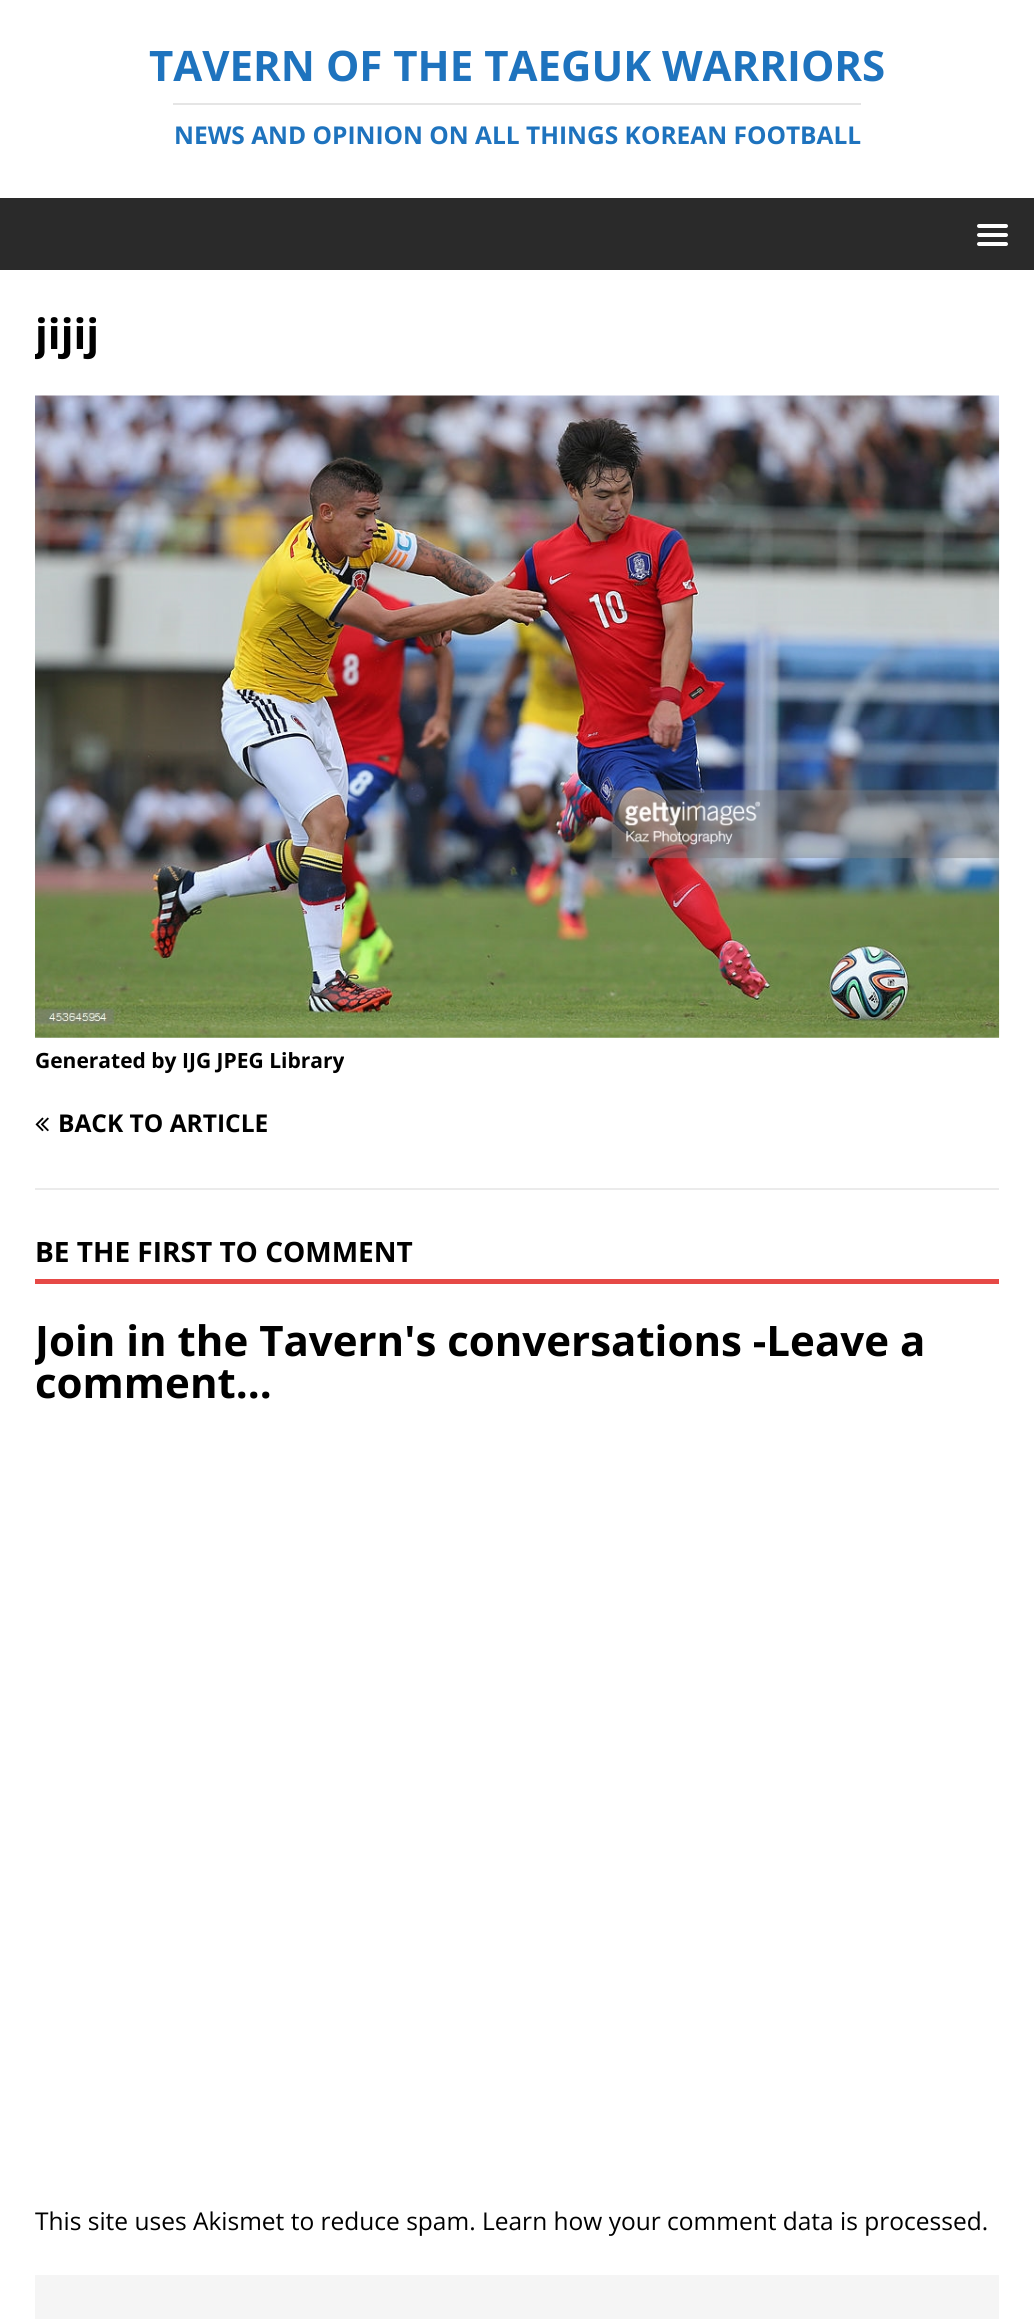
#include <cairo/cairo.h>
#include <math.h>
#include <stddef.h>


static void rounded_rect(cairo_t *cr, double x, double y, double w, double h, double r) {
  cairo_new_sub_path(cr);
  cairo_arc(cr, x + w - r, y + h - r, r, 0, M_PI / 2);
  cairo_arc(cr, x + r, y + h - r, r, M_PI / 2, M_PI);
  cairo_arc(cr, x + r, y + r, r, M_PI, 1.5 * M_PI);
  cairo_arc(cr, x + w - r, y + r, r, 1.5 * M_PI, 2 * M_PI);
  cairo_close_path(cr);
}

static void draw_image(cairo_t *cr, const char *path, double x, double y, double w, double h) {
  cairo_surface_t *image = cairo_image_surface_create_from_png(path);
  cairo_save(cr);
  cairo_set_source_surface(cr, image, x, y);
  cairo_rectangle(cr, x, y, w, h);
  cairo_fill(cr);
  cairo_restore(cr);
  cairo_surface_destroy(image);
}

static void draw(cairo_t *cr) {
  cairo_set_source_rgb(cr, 1, 1, 1);
  cairo_paint(cr);
  cairo_set_source_rgb(cr, 229 / 255.0, 229 / 255.0, 229 / 255.0);
  cairo_rectangle(cr, 173, 103, 688, 2);
  cairo_fill(cr);
  cairo_set_source_rgb(cr, 42 / 255.0, 42 / 255.0, 42 / 255.0);
  cairo_rectangle(cr, 0, 198, 1034, 72);
  cairo_fill(cr);
  cairo_set_source_rgb(cr, 1, 1, 1);
  rounded_rect(cr, 977, 224, 31, 4, 2);
  cairo_fill(cr);
  rounded_rect(cr, 977, 233, 31, 4, 2);
  cairo_fill(cr);
  rounded_rect(cr, 977, 242, 31, 4, 2);
  cairo_fill(cr);
  draw_image(cr, "images/1.png", 35, 395, 965, 643);
  cairo_set_source_rgb(cr, 235 / 255.0, 235 / 255.0, 235 / 255.0);
  cairo_rectangle(cr, 35, 1188, 964, 2);
  cairo_fill(cr);
  draw_image(cr, "images/2.png", 35, 1117, 14, 15);
  cairo_set_source_rgb(cr, 230 / 255.0, 73 / 255.0, 70 / 255.0);
  cairo_rectangle(cr, 35, 1279, 964, 5);
  cairo_fill(cr);
  cairo_set_source_rgb(cr, 245 / 255.0, 245 / 255.0, 245 / 255.0);
  cairo_rectangle(cr, 35, 2275, 964, 44);
  cairo_fill(cr);
  cairo_select_font_face(cr, "Open Sans", CAIRO_FONT_SLANT_NORMAL, CAIRO_FONT_WEIGHT_BOLD);
  cairo_set_font_size(cr, 42);
  cairo_set_source_rgb(cr, 30 / 255.0, 115 / 255.0, 190 / 255.0);
  cairo_move_to(cr, 149, 81);
  cairo_show_text(cr, "TAVERN OF THE TAEGUK WARRIORS");
  cairo_set_font_size(cr, 24.5);
  cairo_move_to(cr, 174, 144);
  cairo_show_text(cr, "NEWS AND OPINION ON ALL THINGS KOREAN FOOTBALL");
  cairo_save(cr);
  cairo_rectangle(cr, 35, 305, 964, 1935);
  cairo_clip(cr);
  cairo_set_font_size(cr, 42);
  cairo_set_source_rgb(cr, 0, 0, 0);
  cairo_move_to(cr, 35, 349);
  cairo_show_text(cr, "jijij");
  cairo_restore(cr);
  cairo_set_font_size(cr, 21);
  cairo_set_source_rgb(cr, 0, 0, 0);
  cairo_move_to(cr, 35, 1068);
  cairo_show_text(cr, "Generated by IJG JPEG Library");
  cairo_set_font_size(cr, 24.5);
  cairo_move_to(cr, 58, 1132);
  cairo_show_text(cr, "BACK TO ARTICLE");
  cairo_set_font_size(cr, 28);
  cairo_move_to(cr, 35, 1262);
  cairo_show_text(cr, "BE THE FIRST TO COMMENT");
  cairo_save(cr);
  cairo_rectangle(cr, 35, 305, 964, 1935);
  cairo_clip(cr);
  cairo_set_font_size(cr, 42);
  cairo_move_to(cr, 35, 1356);
  cairo_show_text(cr, "Join in the Tavern's conversations -Leave a");
  cairo_restore(cr);
  cairo_set_font_size(cr, 42);
  cairo_move_to(cr, 35, 1398);
  cairo_show_text(cr, "comment...");
  cairo_select_font_face(cr, "Open Sans", CAIRO_FONT_SLANT_NORMAL, CAIRO_FONT_WEIGHT_NORMAL);
  cairo_set_font_size(cr, 24.5);
  cairo_move_to(cr, 35, 2230);
  cairo_show_text(cr, "This site uses Akismet to reduce spam. Learn how your comment data is processed.");
}

int main(void) {
  cairo_surface_t *surface = cairo_image_surface_create(CAIRO_FORMAT_RGB24, 1034, 2319);
  cairo_t *cr = cairo_create(surface);
  cairo_font_options_t *options = cairo_font_options_create();
  cairo_font_options_set_hint_metrics(options, CAIRO_HINT_METRICS_OFF);
  cairo_font_options_set_hint_style(options, CAIRO_HINT_STYLE_NONE);
  cairo_set_font_options(cr, options);
  cairo_set_miter_limit(cr, 4);
  draw(cr);
  cairo_surface_write_to_png(surface, "out.png");
  cairo_font_options_destroy(options);
  cairo_destroy(cr);
  cairo_surface_destroy(surface);
  return 0;
}
